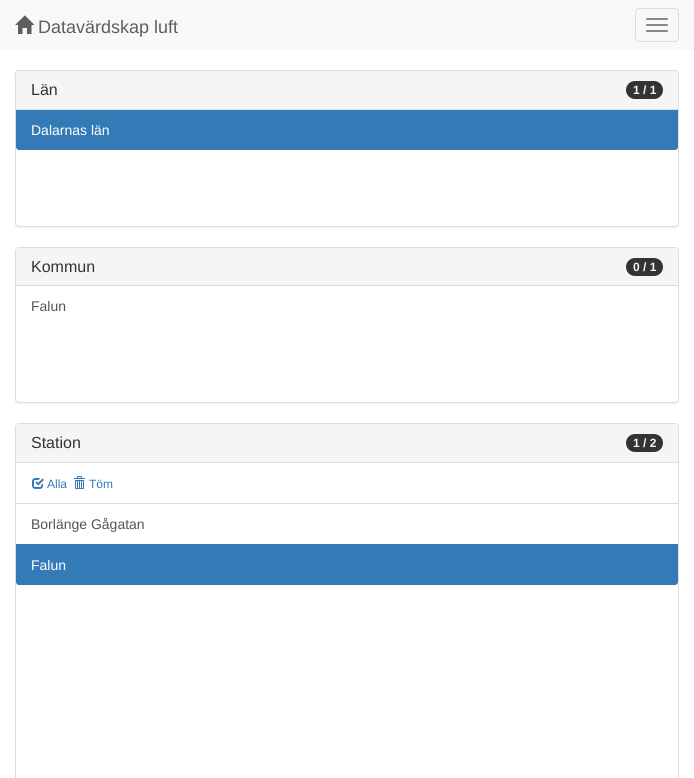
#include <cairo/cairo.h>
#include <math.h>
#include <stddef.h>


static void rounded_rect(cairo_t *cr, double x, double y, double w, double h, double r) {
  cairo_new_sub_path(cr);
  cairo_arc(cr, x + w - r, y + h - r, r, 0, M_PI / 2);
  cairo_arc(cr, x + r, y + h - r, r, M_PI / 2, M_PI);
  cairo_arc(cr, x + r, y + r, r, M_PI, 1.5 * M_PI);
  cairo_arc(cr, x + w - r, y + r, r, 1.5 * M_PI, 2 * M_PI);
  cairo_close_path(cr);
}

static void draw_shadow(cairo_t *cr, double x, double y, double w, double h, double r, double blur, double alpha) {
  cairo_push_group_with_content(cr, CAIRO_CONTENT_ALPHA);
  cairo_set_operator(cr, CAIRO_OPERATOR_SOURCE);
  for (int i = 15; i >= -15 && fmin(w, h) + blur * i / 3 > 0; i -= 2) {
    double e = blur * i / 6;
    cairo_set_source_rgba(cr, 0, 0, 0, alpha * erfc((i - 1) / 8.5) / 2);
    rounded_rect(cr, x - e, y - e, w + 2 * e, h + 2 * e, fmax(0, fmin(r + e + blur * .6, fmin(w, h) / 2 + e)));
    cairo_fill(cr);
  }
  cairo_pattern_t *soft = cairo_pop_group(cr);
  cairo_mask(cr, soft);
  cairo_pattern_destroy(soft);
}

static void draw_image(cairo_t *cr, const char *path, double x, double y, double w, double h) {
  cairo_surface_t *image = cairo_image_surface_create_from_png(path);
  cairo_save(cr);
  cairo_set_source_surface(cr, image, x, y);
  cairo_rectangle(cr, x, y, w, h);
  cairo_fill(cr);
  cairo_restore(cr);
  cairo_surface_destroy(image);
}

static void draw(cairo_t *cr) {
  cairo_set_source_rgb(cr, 1, 1, 1);
  cairo_paint(cr);
  cairo_set_source_rgb(cr, 248 / 255.0, 248 / 255.0, 248 / 255.0);
  cairo_rectangle(cr, 0, 0, 694, 50);
  cairo_fill(cr);
  draw_image(cr, "images/1.png", 15, 15, 20, 19);
  rounded_rect(cr, 635.5, 8.5, 43, 33, 3.5);
  cairo_set_source_rgb(cr, 221 / 255.0, 221 / 255.0, 221 / 255.0);
  cairo_set_line_width(cr, 1);
  cairo_stroke(cr);
  cairo_set_source_rgb(cr, 136 / 255.0, 136 / 255.0, 136 / 255.0);
  rounded_rect(cr, 646, 18, 22, 2, 1);
  cairo_fill(cr);
  rounded_rect(cr, 646, 24, 22, 2, 1);
  cairo_fill(cr);
  rounded_rect(cr, 646, 30, 22, 2, 1);
  cairo_fill(cr);
  cairo_set_source_rgb(cr, 0, 0, 0);
  draw_shadow(cr, 15, 71, 664, 157, 4, 0.5, 0.05);
  cairo_set_source_rgb(cr, 1, 1, 1);
  rounded_rect(cr, 15.5, 70.5, 663, 156, 3.5);
  cairo_fill_preserve(cr);
  cairo_set_source_rgb(cr, 221 / 255.0, 221 / 255.0, 221 / 255.0);
  cairo_stroke(cr);
  cairo_set_source_rgb(cr, 245 / 255.0, 245 / 255.0, 245 / 255.0);
  cairo_new_path(cr);
  cairo_move_to(cr, 19, 71);
  cairo_line_to(cr, 675, 71);
  cairo_curve_to(cr, 676.5, 71, 678, 72.5, 678, 74);
  cairo_line_to(cr, 678, 110);
  cairo_line_to(cr, 16, 110);
  cairo_line_to(cr, 16, 74);
  cairo_curve_to(cr, 16, 72.5, 17.5, 71, 19, 71);
  cairo_close_path(cr);
  cairo_fill(cr);
  cairo_set_source_rgb(cr, 221 / 255.0, 221 / 255.0, 221 / 255.0);
  cairo_rectangle(cr, 16, 109, 662, 1);
  cairo_fill(cr);
  cairo_set_source_rgb(cr, 51 / 255.0, 51 / 255.0, 51 / 255.0);
  rounded_rect(cr, 626, 81, 37, 18, 9);
  cairo_fill(cr);
  cairo_set_source_rgb(cr, 51 / 255.0, 122 / 255.0, 183 / 255.0);
  cairo_new_path(cr);
  cairo_move_to(cr, 16, 110);
  cairo_line_to(cr, 678, 110);
  cairo_line_to(cr, 678, 147);
  cairo_curve_to(cr, 678, 148.5, 676.5, 150, 675, 150);
  cairo_line_to(cr, 19, 150);
  cairo_curve_to(cr, 17.5, 150, 16, 148.5, 16, 147);
  cairo_close_path(cr);
  cairo_fill(cr);
  cairo_set_source_rgb(cr, 0, 0, 0);
  draw_shadow(cr, 15, 248, 664, 156, 4, 0.5, 0.05);
  cairo_set_source_rgb(cr, 1, 1, 1);
  rounded_rect(cr, 15.5, 247.5, 663, 155, 3.5);
  cairo_fill_preserve(cr);
  cairo_set_source_rgb(cr, 221 / 255.0, 221 / 255.0, 221 / 255.0);
  cairo_stroke(cr);
  cairo_set_source_rgb(cr, 245 / 255.0, 245 / 255.0, 245 / 255.0);
  cairo_new_path(cr);
  cairo_move_to(cr, 19, 248);
  cairo_line_to(cr, 675, 248);
  cairo_curve_to(cr, 676.5, 248, 678, 249.5, 678, 251);
  cairo_line_to(cr, 678, 286);
  cairo_line_to(cr, 16, 286);
  cairo_line_to(cr, 16, 251);
  cairo_curve_to(cr, 16, 249.5, 17.5, 248, 19, 248);
  cairo_close_path(cr);
  cairo_fill(cr);
  cairo_set_source_rgb(cr, 221 / 255.0, 221 / 255.0, 221 / 255.0);
  cairo_rectangle(cr, 16, 285, 662, 1);
  cairo_fill(cr);
  cairo_set_source_rgb(cr, 51 / 255.0, 51 / 255.0, 51 / 255.0);
  rounded_rect(cr, 626, 258, 37, 18, 9);
  cairo_fill(cr);
  rounded_rect(cr, 15.5, 423.5, 663, 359, 3.5);
  cairo_set_source_rgb(cr, 221 / 255.0, 221 / 255.0, 221 / 255.0);
  cairo_stroke(cr);
  cairo_set_source_rgb(cr, 245 / 255.0, 245 / 255.0, 245 / 255.0);
  cairo_new_path(cr);
  cairo_move_to(cr, 19, 424);
  cairo_line_to(cr, 675, 424);
  cairo_curve_to(cr, 676.5, 424, 678, 425.5, 678, 427);
  cairo_line_to(cr, 678, 463);
  cairo_line_to(cr, 16, 463);
  cairo_line_to(cr, 16, 427);
  cairo_curve_to(cr, 16, 425.5, 17.5, 424, 19, 424);
  cairo_close_path(cr);
  cairo_fill(cr);
  cairo_set_source_rgb(cr, 221 / 255.0, 221 / 255.0, 221 / 255.0);
  cairo_rectangle(cr, 16, 462, 662, 1);
  cairo_fill(cr);
  cairo_set_source_rgb(cr, 51 / 255.0, 51 / 255.0, 51 / 255.0);
  rounded_rect(cr, 626, 434, 37, 18, 9);
  cairo_fill(cr);
  draw_image(cr, "images/2.png", 32, 478, 12, 11);
  draw_image(cr, "images/3.png", 74, 476, 11, 13);
  cairo_set_source_rgb(cr, 221 / 255.0, 221 / 255.0, 221 / 255.0);
  cairo_rectangle(cr, 16, 503, 662, 1);
  cairo_fill(cr);
  cairo_set_source_rgb(cr, 51 / 255.0, 122 / 255.0, 183 / 255.0);
  cairo_new_path(cr);
  cairo_move_to(cr, 16, 544);
  cairo_line_to(cr, 678, 544);
  cairo_line_to(cr, 678, 582);
  cairo_curve_to(cr, 678, 583.5, 676.5, 585, 675, 585);
  cairo_line_to(cr, 19, 585);
  cairo_curve_to(cr, 17.5, 585, 16, 583.5, 16, 582);
  cairo_close_path(cr);
  cairo_fill(cr);
  cairo_select_font_face(cr, "Liberation Sans", CAIRO_FONT_SLANT_NORMAL, CAIRO_FONT_WEIGHT_NORMAL);
  cairo_set_font_size(cr, 18);
  cairo_set_source_rgb(cr, 94 / 255.0, 94 / 255.0, 94 / 255.0);
  cairo_move_to(cr, 38, 33);
  cairo_show_text(cr, "Datavärdskap luft");
  cairo_set_font_size(cr, 16);
  cairo_set_source_rgb(cr, 51 / 255.0, 51 / 255.0, 51 / 255.0);
  cairo_move_to(cr, 31, 95);
  cairo_show_text(cr, "Län");
  cairo_select_font_face(cr, "Liberation Sans", CAIRO_FONT_SLANT_NORMAL, CAIRO_FONT_WEIGHT_BOLD);
  cairo_set_font_size(cr, 12);
  cairo_set_source_rgb(cr, 245 / 255.0, 245 / 255.0, 245 / 255.0);
  cairo_move_to(cr, 633, 94);
  cairo_show_text(cr, "1 / 1");
  cairo_select_font_face(cr, "Liberation Sans", CAIRO_FONT_SLANT_NORMAL, CAIRO_FONT_WEIGHT_NORMAL);
  cairo_set_font_size(cr, 14);
  cairo_set_source_rgb(cr, 1, 1, 1);
  cairo_move_to(cr, 31, 135);
  cairo_show_text(cr, "Dalarnas län");
  cairo_set_font_size(cr, 16);
  cairo_set_source_rgb(cr, 51 / 255.0, 51 / 255.0, 51 / 255.0);
  cairo_move_to(cr, 31, 272);
  cairo_show_text(cr, "Kommun");
  cairo_select_font_face(cr, "Liberation Sans", CAIRO_FONT_SLANT_NORMAL, CAIRO_FONT_WEIGHT_BOLD);
  cairo_set_font_size(cr, 12);
  cairo_set_source_rgb(cr, 245 / 255.0, 245 / 255.0, 245 / 255.0);
  cairo_move_to(cr, 633, 271);
  cairo_show_text(cr, "0 / 1");
  cairo_select_font_face(cr, "Liberation Sans", CAIRO_FONT_SLANT_NORMAL, CAIRO_FONT_WEIGHT_NORMAL);
  cairo_set_font_size(cr, 14);
  cairo_set_source_rgb(cr, 85 / 255.0, 85 / 255.0, 85 / 255.0);
  cairo_move_to(cr, 31, 311);
  cairo_show_text(cr, "Falun");
  cairo_set_font_size(cr, 16);
  cairo_set_source_rgb(cr, 51 / 255.0, 51 / 255.0, 51 / 255.0);
  cairo_move_to(cr, 31, 448);
  cairo_show_text(cr, "Station");
  cairo_select_font_face(cr, "Liberation Sans", CAIRO_FONT_SLANT_NORMAL, CAIRO_FONT_WEIGHT_BOLD);
  cairo_set_font_size(cr, 12);
  cairo_set_source_rgb(cr, 245 / 255.0, 245 / 255.0, 245 / 255.0);
  cairo_move_to(cr, 633, 447);
  cairo_show_text(cr, "1 / 2");
  cairo_select_font_face(cr, "Liberation Sans", CAIRO_FONT_SLANT_NORMAL, CAIRO_FONT_WEIGHT_NORMAL);
  cairo_set_source_rgb(cr, 51 / 255.0, 122 / 255.0, 183 / 255.0);
  cairo_move_to(cr, 47, 488);
  cairo_show_text(cr, "Alla");
  cairo_move_to(cr, 89, 488);
  cairo_show_text(cr, "Töm");
  cairo_set_font_size(cr, 14);
  cairo_set_source_rgb(cr, 85 / 255.0, 85 / 255.0, 85 / 255.0);
  cairo_move_to(cr, 31, 529);
  cairo_show_text(cr, "Borlänge Gågatan");
  cairo_set_source_rgb(cr, 1, 1, 1);
  cairo_move_to(cr, 31, 570);
  cairo_show_text(cr, "Falun");
}

int main(void) {
  cairo_surface_t *surface = cairo_image_surface_create(CAIRO_FORMAT_RGB24, 694, 778);
  cairo_t *cr = cairo_create(surface);
  cairo_font_options_t *options = cairo_font_options_create();
  cairo_font_options_set_hint_metrics(options, CAIRO_HINT_METRICS_OFF);
  cairo_font_options_set_hint_style(options, CAIRO_HINT_STYLE_NONE);
  cairo_set_font_options(cr, options);
  cairo_set_miter_limit(cr, 4);
  draw(cr);
  cairo_surface_write_to_png(surface, "out.png");
  cairo_font_options_destroy(options);
  cairo_destroy(cr);
  cairo_surface_destroy(surface);
  return 0;
}
